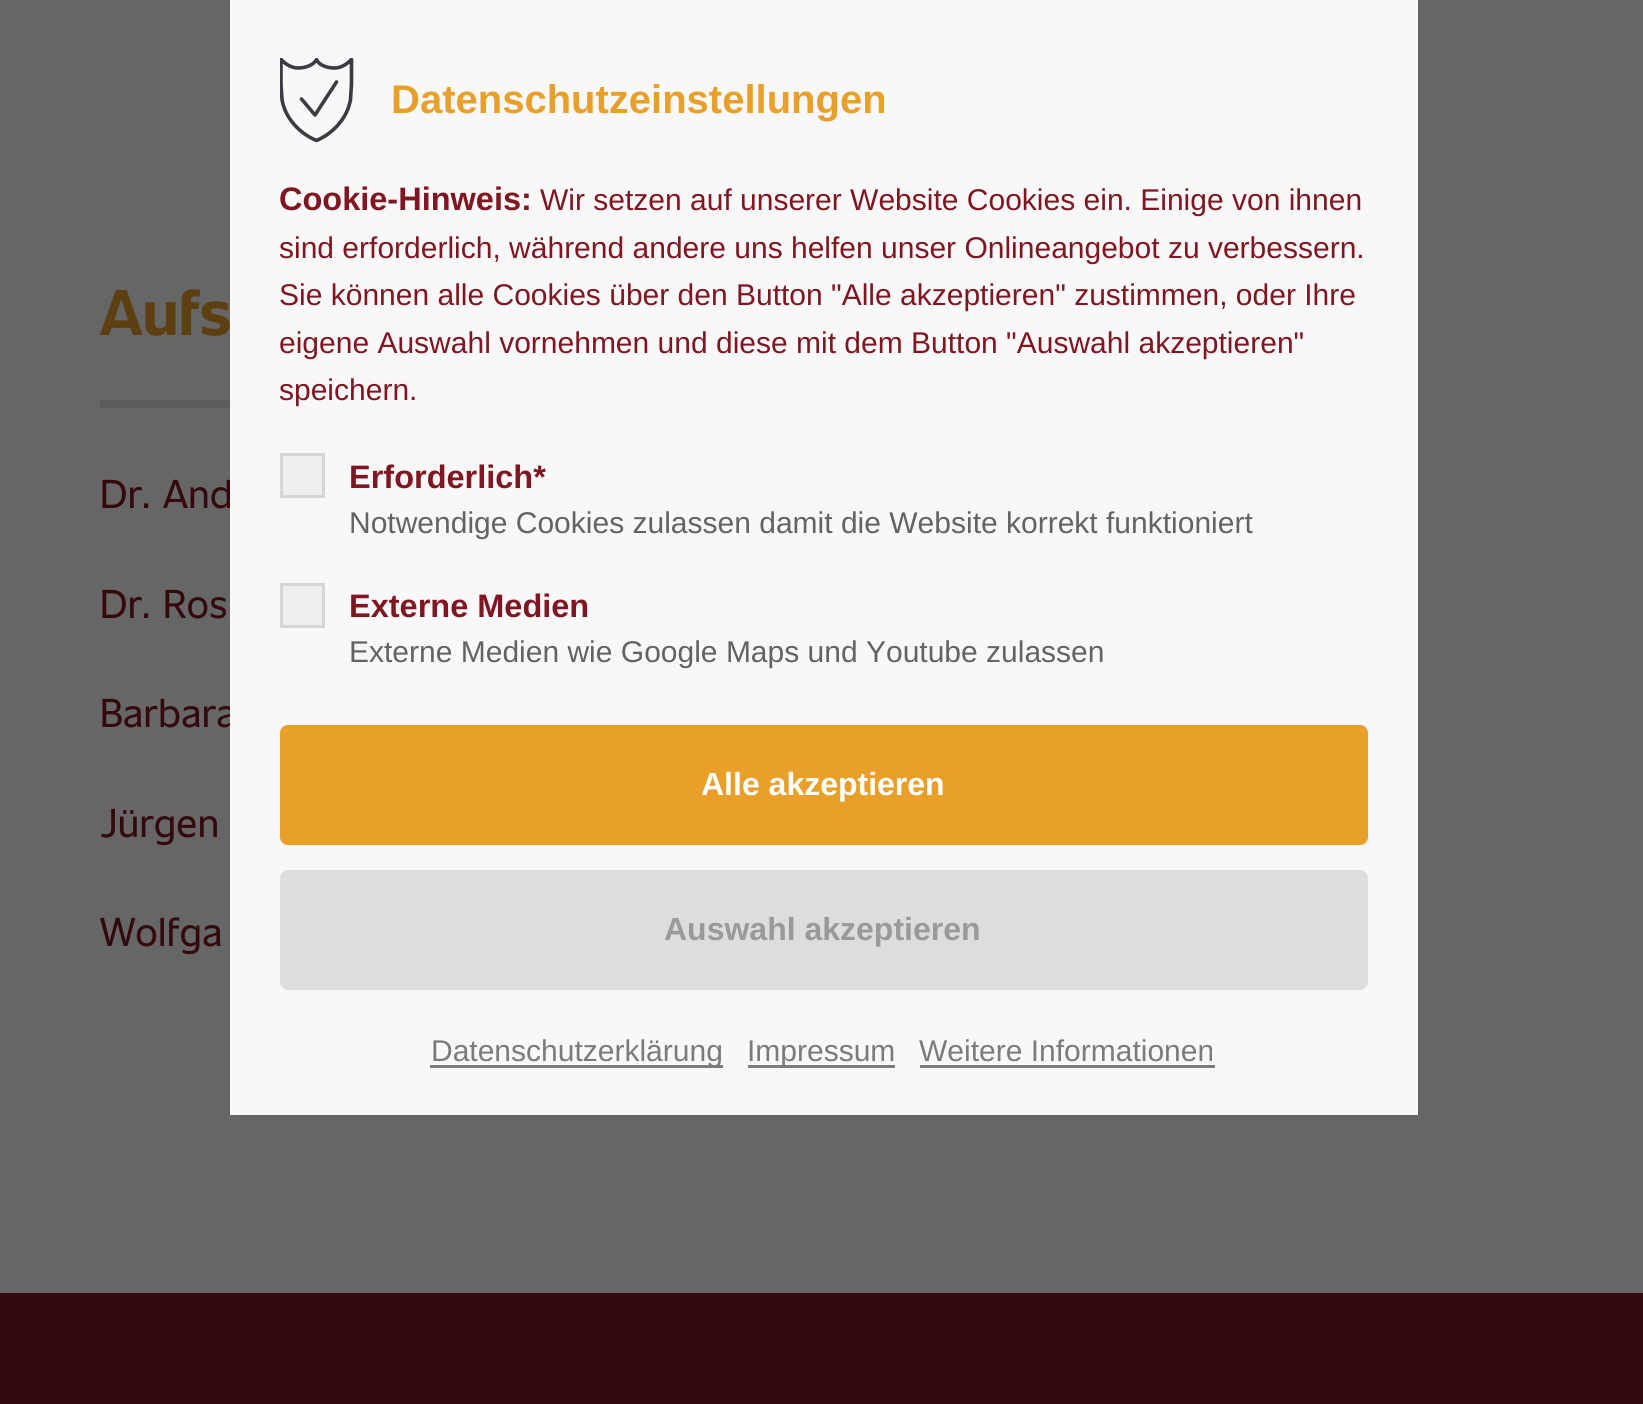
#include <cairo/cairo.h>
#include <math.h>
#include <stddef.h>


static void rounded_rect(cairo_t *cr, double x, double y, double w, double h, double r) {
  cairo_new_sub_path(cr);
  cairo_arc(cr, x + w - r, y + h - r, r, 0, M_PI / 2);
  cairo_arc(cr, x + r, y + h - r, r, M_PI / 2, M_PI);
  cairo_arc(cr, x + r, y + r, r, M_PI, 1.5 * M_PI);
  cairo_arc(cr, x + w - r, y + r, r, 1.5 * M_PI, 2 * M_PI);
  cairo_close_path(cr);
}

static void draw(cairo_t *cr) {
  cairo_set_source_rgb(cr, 102 / 255.0, 102 / 255.0, 102 / 255.0);
  cairo_paint(cr);
  cairo_set_source_rgb(cr, 92 / 255.0, 92 / 255.0, 92 / 255.0);
  cairo_rectangle(cr, 100, 400, 130, 8);
  cairo_fill(cr);
  cairo_set_source_rgb(cr, 51 / 255.0, 9 / 255.0, 13 / 255.0);
  cairo_rectangle(cr, 0, 1293, 1643, 111);
  cairo_fill(cr);
  cairo_select_font_face(cr, "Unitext", CAIRO_FONT_SLANT_NORMAL, CAIRO_FONT_WEIGHT_BOLD);
  cairo_set_font_size(cr, 64);
  cairo_set_source_rgb(cr, 93 / 255.0, 64 / 255.0, 17 / 255.0);
  cairo_move_to(cr, 100, 335);
  cairo_show_text(cr, "Aufs");
  cairo_select_font_face(cr, "Unitext", CAIRO_FONT_SLANT_NORMAL, CAIRO_FONT_WEIGHT_NORMAL);
  cairo_set_font_size(cr, 40);
  cairo_set_source_rgb(cr, 51 / 255.0, 9 / 255.0, 13 / 255.0);
  cairo_move_to(cr, 100, 508);
  cairo_show_text(cr, "Dr. And");
  cairo_move_to(cr, 100, 618);
  cairo_show_text(cr, "Dr. Ros");
  cairo_move_to(cr, 100, 727);
  cairo_show_text(cr, "Barbara");
  cairo_move_to(cr, 100, 837);
  cairo_show_text(cr, "Jürgen");
  cairo_move_to(cr, 100, 946);
  cairo_show_text(cr, "Wolfga");
  cairo_set_source_rgb(cr, 248 / 255.0, 248 / 255.0, 248 / 255.0);
  cairo_rectangle(cr, 230, 0, 1188, 1115);
  cairo_fill(cr);
  cairo_save(cr);
  cairo_rectangle(cr, 280, 58, 75, 85);
  cairo_clip(cr);
  cairo_new_path(cr);
  cairo_move_to(cr, 316.5, 140.5);
  cairo_curve_to(cr, 299.5, 133.5, 285, 118, 282, 99.5);
  cairo_line_to(cr, 281, 84);
  cairo_line_to(cr, 281, 59.5);
  cairo_curve_to(cr, 284.5, 63, 290.5, 68, 298, 68);
  cairo_curve_to(cr, 306.5, 68, 314, 64.5, 316.5, 59.5);
  cairo_curve_to(cr, 318.5, 64.5, 326, 68, 334.5, 68);
  cairo_curve_to(cr, 342, 68, 348, 63, 351.5, 59.5);
  cairo_line_to(cr, 351.5, 84);
  cairo_line_to(cr, 350.5, 99.5);
  cairo_curve_to(cr, 347.5, 118, 333, 133.5, 316.5, 140.5);
  cairo_close_path(cr);
  cairo_set_source_rgb(cr, 59 / 255.0, 60 / 255.0, 65 / 255.0);
  cairo_set_line_width(cr, 3.6);
  cairo_set_line_cap(cr, CAIRO_LINE_CAP_ROUND);
  cairo_set_line_join(cr, CAIRO_LINE_JOIN_ROUND);
  cairo_stroke(cr);
  cairo_restore(cr);
  cairo_new_path(cr);
  cairo_move_to(cr, 301.5, 99);
  cairo_line_to(cr, 315, 115);
  cairo_line_to(cr, 336.5, 82);
  cairo_set_source_rgb(cr, 59 / 255.0, 60 / 255.0, 65 / 255.0);
  cairo_set_line_width(cr, 3.6);
  cairo_set_line_cap(cr, CAIRO_LINE_CAP_ROUND);
  cairo_set_line_join(cr, CAIRO_LINE_JOIN_ROUND);
  cairo_stroke(cr);
  cairo_select_font_face(cr, "Liberation Sans", CAIRO_FONT_SLANT_NORMAL, CAIRO_FONT_WEIGHT_BOLD);
  cairo_set_source_rgb(cr, 233 / 255.0, 160 / 255.0, 43 / 255.0);
  cairo_move_to(cr, 391, 113);
  cairo_show_text(cr, "Datenschutzeinstellungen");
  cairo_set_font_size(cr, 32.5);
  cairo_set_source_rgb(cr, 127 / 255.0, 22 / 255.0, 33 / 255.0);
  cairo_move_to(cr, 279, 210);
  cairo_show_text(cr, "Cookie-Hinweis:");
  cairo_select_font_face(cr, "Liberation Sans", CAIRO_FONT_SLANT_NORMAL, CAIRO_FONT_WEIGHT_NORMAL);
  cairo_set_font_size(cr, 30);
  cairo_move_to(cr, 540, 210);
  cairo_show_text(cr, "Wir setzen auf unserer Website Cookies ein. Einige von ihnen");
  cairo_move_to(cr, 279, 258);
  cairo_show_text(cr, "sind erforderlich, während andere uns helfen unser Onlineangebot zu verbessern.");
  cairo_move_to(cr, 279, 305);
  cairo_show_text(cr, "Sie können alle Cookies über den Button \"Alle akzeptieren\" zustimmen, oder Ihre");
  cairo_move_to(cr, 279, 353);
  cairo_show_text(cr, "eigene Auswahl vornehmen und diese mit dem Button \"Auswahl akzeptieren\"");
  cairo_move_to(cr, 279, 400);
  cairo_show_text(cr, "speichern.");
  cairo_set_source_rgb(cr, 238 / 255.0, 238 / 255.0, 238 / 255.0);
  cairo_rectangle(cr, 281.5, 454.5, 42, 42);
  cairo_fill_preserve(cr);
  cairo_set_source_rgb(cr, 214 / 255.0, 214 / 255.0, 214 / 255.0);
  cairo_set_line_width(cr, 3);
  cairo_set_line_cap(cr, CAIRO_LINE_CAP_BUTT);
  cairo_set_line_join(cr, CAIRO_LINE_JOIN_MITER);
  cairo_stroke(cr);
  cairo_select_font_face(cr, "Liberation Sans", CAIRO_FONT_SLANT_NORMAL, CAIRO_FONT_WEIGHT_BOLD);
  cairo_set_font_size(cr, 32.5);
  cairo_set_source_rgb(cr, 127 / 255.0, 22 / 255.0, 33 / 255.0);
  cairo_move_to(cr, 349, 488);
  cairo_show_text(cr, "Erforderlich*");
  cairo_select_font_face(cr, "Liberation Sans", CAIRO_FONT_SLANT_NORMAL, CAIRO_FONT_WEIGHT_NORMAL);
  cairo_set_font_size(cr, 30);
  cairo_set_source_rgb(cr, 99 / 255.0, 99 / 255.0, 99 / 255.0);
  cairo_move_to(cr, 349, 533);
  cairo_show_text(cr, "Notwendige Cookies zulassen damit die Website korrekt funktioniert");
  cairo_set_source_rgb(cr, 238 / 255.0, 238 / 255.0, 238 / 255.0);
  cairo_rectangle(cr, 281.5, 584.5, 42, 42);
  cairo_fill_preserve(cr);
  cairo_set_source_rgb(cr, 214 / 255.0, 214 / 255.0, 214 / 255.0);
  cairo_stroke(cr);
  cairo_select_font_face(cr, "Liberation Sans", CAIRO_FONT_SLANT_NORMAL, CAIRO_FONT_WEIGHT_BOLD);
  cairo_set_font_size(cr, 32.5);
  cairo_set_source_rgb(cr, 127 / 255.0, 22 / 255.0, 33 / 255.0);
  cairo_move_to(cr, 349, 617);
  cairo_show_text(cr, "Externe Medien");
  cairo_select_font_face(cr, "Liberation Sans", CAIRO_FONT_SLANT_NORMAL, CAIRO_FONT_WEIGHT_NORMAL);
  cairo_set_font_size(cr, 30);
  cairo_set_source_rgb(cr, 99 / 255.0, 99 / 255.0, 99 / 255.0);
  cairo_move_to(cr, 349, 662);
  cairo_show_text(cr, "Externe Medien wie Google Maps und Youtube zulassen");
  cairo_set_source_rgb(cr, 233 / 255.0, 160 / 255.0, 43 / 255.0);
  rounded_rect(cr, 280, 725, 1088, 120, 8);
  cairo_fill(cr);
  cairo_select_font_face(cr, "Liberation Sans", CAIRO_FONT_SLANT_NORMAL, CAIRO_FONT_WEIGHT_BOLD);
  cairo_set_font_size(cr, 32);
  cairo_set_source_rgb(cr, 1, 1, 1);
  cairo_move_to(cr, 701, 795);
  cairo_show_text(cr, "Alle akzeptieren");
  cairo_set_source_rgb(cr, 221 / 255.0, 221 / 255.0, 221 / 255.0);
  rounded_rect(cr, 280, 870, 1088, 120, 8);
  cairo_fill(cr);
  cairo_set_source_rgb(cr, 154 / 255.0, 154 / 255.0, 154 / 255.0);
  cairo_move_to(cr, 664, 940);
  cairo_show_text(cr, "Auswahl akzeptieren");
  cairo_set_source_rgb(cr, 124 / 255.0, 124 / 255.0, 124 / 255.0);
  cairo_rectangle(cr, 430, 1065, 293, 3);
  cairo_fill(cr);
  cairo_select_font_face(cr, "Liberation Sans", CAIRO_FONT_SLANT_NORMAL, CAIRO_FONT_WEIGHT_NORMAL);
  cairo_set_font_size(cr, 30);
  cairo_set_source_rgb(cr, 123 / 255.0, 123 / 255.0, 123 / 255.0);
  cairo_move_to(cr, 431, 1061);
  cairo_show_text(cr, "Datenschutzerklärung");
  cairo_set_source_rgb(cr, 124 / 255.0, 124 / 255.0, 124 / 255.0);
  cairo_rectangle(cr, 748, 1065, 147, 3);
  cairo_fill(cr);
  cairo_set_source_rgb(cr, 123 / 255.0, 123 / 255.0, 123 / 255.0);
  cairo_move_to(cr, 747, 1061);
  cairo_show_text(cr, "Impressum");
  cairo_move_to(cr, 919, 1061);
  cairo_show_text(cr, "Weitere Informationen");
  cairo_set_source_rgb(cr, 124 / 255.0, 124 / 255.0, 124 / 255.0);
  cairo_rectangle(cr, 920, 1065, 295, 3);
  cairo_fill(cr);
}

int main(void) {
  cairo_surface_t *surface = cairo_image_surface_create(CAIRO_FORMAT_RGB24, 1643, 1404);
  cairo_t *cr = cairo_create(surface);
  cairo_font_options_t *options = cairo_font_options_create();
  cairo_font_options_set_hint_metrics(options, CAIRO_HINT_METRICS_OFF);
  cairo_font_options_set_hint_style(options, CAIRO_HINT_STYLE_NONE);
  cairo_set_font_options(cr, options);
  cairo_set_miter_limit(cr, 4);
  draw(cr);
  cairo_surface_write_to_png(surface, "out.png");
  cairo_font_options_destroy(options);
  cairo_destroy(cr);
  cairo_surface_destroy(surface);
  return 0;
}
